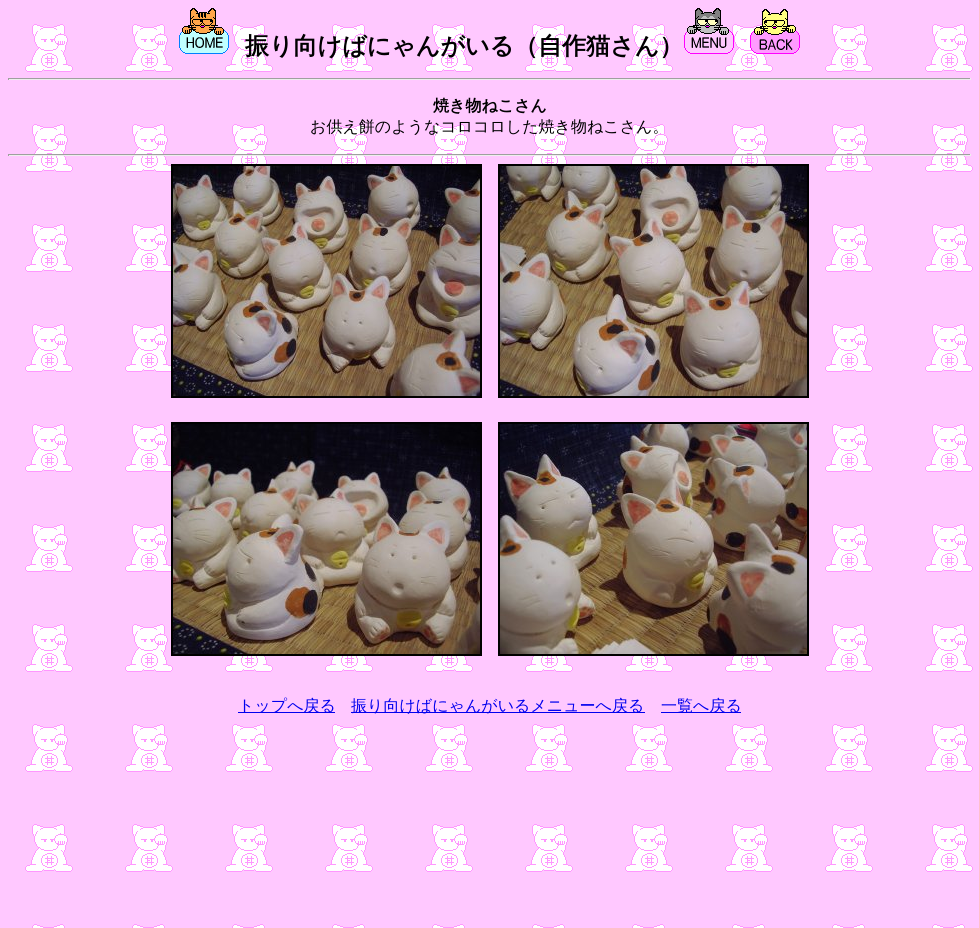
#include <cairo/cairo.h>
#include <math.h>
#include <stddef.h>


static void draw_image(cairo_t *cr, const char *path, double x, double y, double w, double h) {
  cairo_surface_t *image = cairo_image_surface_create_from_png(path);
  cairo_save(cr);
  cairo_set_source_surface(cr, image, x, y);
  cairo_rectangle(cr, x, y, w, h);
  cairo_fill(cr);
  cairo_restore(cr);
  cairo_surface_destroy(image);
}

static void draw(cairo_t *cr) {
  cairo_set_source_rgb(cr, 1, 1, 1);
  cairo_paint(cr);
  draw_image(cr, "images/1.png", 0, 0, 979, 928);
  draw_image(cr, "images/2.png", 179, 8, 50, 46);
  draw_image(cr, "images/3.png", 684, 8, 50, 46);
  draw_image(cr, "images/4.png", 750, 9, 50, 45);
  cairo_set_source_rgb(cr, 159 / 255.0, 159 / 255.0, 159 / 255.0);
  cairo_rectangle(cr, 8, 78, 963, 1);
  cairo_fill(cr);
  cairo_set_source_rgb(cr, 238 / 255.0, 238 / 255.0, 238 / 255.0);
  cairo_rectangle(cr, 970, 78, 1, 2);
  cairo_fill(cr);
  cairo_rectangle(cr, 8, 79, 963, 1);
  cairo_fill(cr);
  cairo_set_source_rgb(cr, 159 / 255.0, 159 / 255.0, 159 / 255.0);
  cairo_rectangle(cr, 8, 78, 1, 2);
  cairo_fill(cr);
  cairo_rectangle(cr, 8, 154, 963, 1);
  cairo_fill(cr);
  cairo_set_source_rgb(cr, 238 / 255.0, 238 / 255.0, 238 / 255.0);
  cairo_rectangle(cr, 970, 154, 1, 2);
  cairo_fill(cr);
  cairo_rectangle(cr, 8, 155, 963, 1);
  cairo_fill(cr);
  cairo_set_source_rgb(cr, 159 / 255.0, 159 / 255.0, 159 / 255.0);
  cairo_rectangle(cr, 8, 154, 1, 2);
  cairo_fill(cr);
  cairo_rectangle(cr, 172, 165, 309, 232);
  cairo_set_source_rgb(cr, 0, 0, 0);
  cairo_stroke(cr);
  cairo_rectangle(cr, 499, 165, 309, 232);
  cairo_stroke(cr);
  draw_image(cr, "images/5.png", 173, 166, 307, 230);
  draw_image(cr, "images/6.png", 500, 166, 307, 230);
  cairo_rectangle(cr, 172, 423, 309, 232);
  cairo_stroke(cr);
  cairo_rectangle(cr, 499, 423, 309, 232);
  cairo_stroke(cr);
  draw_image(cr, "images/7.png", 173, 424, 307, 230);
  draw_image(cr, "images/8.png", 500, 424, 307, 230);
  cairo_set_source_rgb(cr, 0, 0, 238 / 255.0);
  cairo_rectangle(cr, 238, 712, 97, 1);
  cairo_fill(cr);
  cairo_rectangle(cr, 351, 712, 294, 1);
  cairo_fill(cr);
  cairo_rectangle(cr, 661, 712, 80, 1);
  cairo_fill(cr);
  cairo_select_font_face(cr, "WenQuanYi Zen Hei", CAIRO_FONT_SLANT_NORMAL, CAIRO_FONT_WEIGHT_BOLD);
  cairo_set_font_size(cr, 24);
  cairo_set_source_rgb(cr, 0, 0, 0);
  cairo_move_to(cr, 245, 54);
  cairo_show_text(cr, "振り向けばにゃんがいる（自作猫さん）");
  cairo_set_font_size(cr, 16);
  cairo_move_to(cr, 433, 111);
  cairo_show_text(cr, "焼き物ねこさん");
  cairo_select_font_face(cr, "WenQuanYi Zen Hei Medium", CAIRO_FONT_SLANT_NORMAL, CAIRO_FONT_WEIGHT_NORMAL);
  cairo_move_to(cr, 310, 132);
  cairo_show_text(cr, "お供え餅のようなコロコロした焼き物ねこさん。");
  cairo_set_source_rgb(cr, 0, 0, 238 / 255.0);
  cairo_move_to(cr, 238, 711);
  cairo_show_text(cr, "トップへ戻る");
  cairo_move_to(cr, 351, 711);
  cairo_show_text(cr, "振り向けばにゃんがいるメニューへ戻る");
  cairo_move_to(cr, 661, 711);
  cairo_show_text(cr, "一覧へ戻る");
}

int main(void) {
  cairo_surface_t *surface = cairo_image_surface_create(CAIRO_FORMAT_RGB24, 979, 928);
  cairo_t *cr = cairo_create(surface);
  cairo_font_options_t *options = cairo_font_options_create();
  cairo_font_options_set_hint_metrics(options, CAIRO_HINT_METRICS_OFF);
  cairo_font_options_set_hint_style(options, CAIRO_HINT_STYLE_NONE);
  cairo_set_font_options(cr, options);
  cairo_set_miter_limit(cr, 4);
  draw(cr);
  cairo_surface_write_to_png(surface, "out.png");
  cairo_font_options_destroy(options);
  cairo_destroy(cr);
  cairo_surface_destroy(surface);
  return 0;
}
